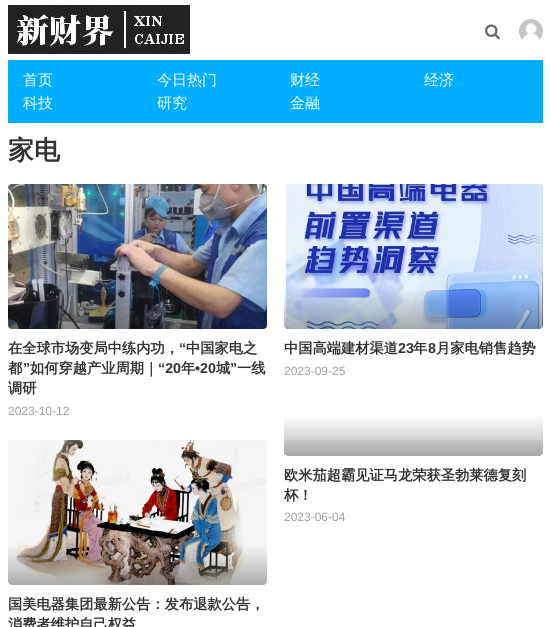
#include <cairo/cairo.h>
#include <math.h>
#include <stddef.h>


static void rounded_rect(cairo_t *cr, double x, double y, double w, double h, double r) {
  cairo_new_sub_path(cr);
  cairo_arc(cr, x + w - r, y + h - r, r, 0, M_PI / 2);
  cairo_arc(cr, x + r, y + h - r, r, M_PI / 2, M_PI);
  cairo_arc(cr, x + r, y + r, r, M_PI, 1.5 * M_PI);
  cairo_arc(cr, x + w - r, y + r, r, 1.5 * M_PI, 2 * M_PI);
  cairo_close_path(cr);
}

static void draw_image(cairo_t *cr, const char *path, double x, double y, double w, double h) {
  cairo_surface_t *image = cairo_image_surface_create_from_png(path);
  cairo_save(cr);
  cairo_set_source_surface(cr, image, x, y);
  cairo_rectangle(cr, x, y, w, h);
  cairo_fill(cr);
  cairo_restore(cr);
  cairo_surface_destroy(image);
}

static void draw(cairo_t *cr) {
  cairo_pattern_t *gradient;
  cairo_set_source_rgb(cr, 1, 1, 1);
  cairo_paint(cr);
  draw_image(cr, "images/1.png", 8, 5, 182, 49);
  draw_image(cr, "images/2.png", 485, 24, 15, 16);
  draw_image(cr, "images/3.png", 519, 19, 24, 21);
  cairo_set_source_rgb(cr, 0, 174 / 255.0, 1);
  cairo_rectangle(cr, 8, 60, 535, 63);
  cairo_fill(cr);
  draw_image(cr, "images/4.png", 8, 184, 259, 145);
  gradient = cairo_pattern_create_linear(138, 283, 138, 329);
  cairo_pattern_add_color_stop_rgba(gradient, 0.12, 0, 0, 0, 0);
  cairo_pattern_add_color_stop_rgba(gradient, 1, 0, 0, 0, 0.3);
  cairo_set_source(cr, gradient);
  cairo_pattern_destroy(gradient);
  cairo_new_path(cr);
  cairo_move_to(cr, 8, 283);
  cairo_line_to(cr, 267, 283);
  cairo_line_to(cr, 267, 325);
  cairo_curve_to(cr, 267, 327, 265, 329, 263, 329);
  cairo_line_to(cr, 12, 329);
  cairo_curve_to(cr, 10, 329, 8, 327, 8, 325);
  cairo_close_path(cr);
  cairo_fill(cr);
  draw_image(cr, "images/5.png", 284, 184, 259, 145);
  gradient = cairo_pattern_create_linear(414, 283, 414, 329);
  cairo_pattern_add_color_stop_rgba(gradient, 0.12, 0, 0, 0, 0);
  cairo_pattern_add_color_stop_rgba(gradient, 1, 0, 0, 0, 0.3);
  cairo_set_source(cr, gradient);
  cairo_pattern_destroy(gradient);
  cairo_new_path(cr);
  cairo_move_to(cr, 284, 283);
  cairo_line_to(cr, 543, 283);
  cairo_line_to(cr, 543, 325);
  cairo_curve_to(cr, 543, 327, 541, 329, 539, 329);
  cairo_line_to(cr, 288, 329);
  cairo_curve_to(cr, 286, 329, 284, 327, 284, 325);
  cairo_close_path(cr);
  cairo_fill(cr);
  cairo_set_source_rgb(cr, 240 / 255.0, 240 / 255.0, 240 / 255.0);
  rounded_rect(cr, 284, 440, 259, 16, 4);
  cairo_fill(cr);
  gradient = cairo_pattern_create_linear(414, 410, 414, 456);
  cairo_pattern_add_color_stop_rgba(gradient, 0.12, 0, 0, 0, 0);
  cairo_pattern_add_color_stop_rgba(gradient, 1, 0, 0, 0, 0.3);
  cairo_set_source(cr, gradient);
  cairo_pattern_destroy(gradient);
  cairo_new_path(cr);
  cairo_move_to(cr, 284, 410);
  cairo_line_to(cr, 543, 410);
  cairo_line_to(cr, 543, 452);
  cairo_curve_to(cr, 543, 454, 541, 456, 539, 456);
  cairo_line_to(cr, 288, 456);
  cairo_curve_to(cr, 286, 456, 284, 454, 284, 452);
  cairo_close_path(cr);
  cairo_fill(cr);
  draw_image(cr, "images/6.png", 8, 440, 259, 145);
  gradient = cairo_pattern_create_linear(138, 539, 138, 585);
  cairo_pattern_add_color_stop_rgba(gradient, 0.12, 0, 0, 0, 0);
  cairo_pattern_add_color_stop_rgba(gradient, 1, 0, 0, 0, 0.3);
  cairo_set_source(cr, gradient);
  cairo_pattern_destroy(gradient);
  cairo_new_path(cr);
  cairo_move_to(cr, 8, 539);
  cairo_line_to(cr, 267, 539);
  cairo_line_to(cr, 267, 581);
  cairo_curve_to(cr, 267, 583, 265, 585, 263, 585);
  cairo_line_to(cr, 12, 585);
  cairo_curve_to(cr, 10, 585, 8, 583, 8, 581);
  cairo_close_path(cr);
  cairo_fill(cr);
  cairo_select_font_face(cr, "WenQuanYi Zen Hei Medium", CAIRO_FONT_SLANT_NORMAL, CAIRO_FONT_WEIGHT_NORMAL);
  cairo_set_font_size(cr, 15);
  cairo_set_source_rgb(cr, 1, 1, 1);
  cairo_move_to(cr, 23, 85);
  cairo_show_text(cr, "首页");
  cairo_move_to(cr, 157, 85);
  cairo_show_text(cr, "今日热门");
  cairo_move_to(cr, 290, 85);
  cairo_show_text(cr, "财经");
  cairo_move_to(cr, 424, 85);
  cairo_show_text(cr, "经济");
  cairo_move_to(cr, 23, 108);
  cairo_show_text(cr, "科技");
  cairo_move_to(cr, 157, 108);
  cairo_show_text(cr, "研究");
  cairo_move_to(cr, 290, 108);
  cairo_show_text(cr, "金融");
  cairo_select_font_face(cr, "WenQuanYi Zen Hei", CAIRO_FONT_SLANT_NORMAL, CAIRO_FONT_WEIGHT_BOLD);
  cairo_set_font_size(cr, 26);
  cairo_set_source_rgb(cr, 51 / 255.0, 51 / 255.0, 51 / 255.0);
  cairo_move_to(cr, 8, 159);
  cairo_show_text(cr, "家电");
  cairo_set_font_size(cr, 14.25);
  cairo_move_to(cr, 8, 353);
  cairo_show_text(cr, "在全球市场变局中练内功，");
  cairo_select_font_face(cr, "Liberation Sans", CAIRO_FONT_SLANT_NORMAL, CAIRO_FONT_WEIGHT_BOLD);
  cairo_move_to(cr, 179, 353);
  cairo_show_text(cr, "“");
  cairo_select_font_face(cr, "WenQuanYi Zen Hei", CAIRO_FONT_SLANT_NORMAL, CAIRO_FONT_WEIGHT_BOLD);
  cairo_move_to(cr, 186, 353);
  cairo_show_text(cr, "中国家电之");
  cairo_move_to(cr, 8, 373);
  cairo_show_text(cr, "都");
  cairo_select_font_face(cr, "Liberation Sans", CAIRO_FONT_SLANT_NORMAL, CAIRO_FONT_WEIGHT_BOLD);
  cairo_move_to(cr, 23, 373);
  cairo_show_text(cr, "”");
  cairo_select_font_face(cr, "WenQuanYi Zen Hei", CAIRO_FONT_SLANT_NORMAL, CAIRO_FONT_WEIGHT_BOLD);
  cairo_move_to(cr, 30, 373);
  cairo_show_text(cr, "如何穿越产业周期｜");
  cairo_select_font_face(cr, "Liberation Sans", CAIRO_FONT_SLANT_NORMAL, CAIRO_FONT_WEIGHT_BOLD);
  cairo_move_to(cr, 158, 373);
  cairo_show_text(cr, "“20");
  cairo_select_font_face(cr, "WenQuanYi Zen Hei", CAIRO_FONT_SLANT_NORMAL, CAIRO_FONT_WEIGHT_BOLD);
  cairo_move_to(cr, 181, 373);
  cairo_show_text(cr, "年");
  cairo_select_font_face(cr, "Liberation Sans", CAIRO_FONT_SLANT_NORMAL, CAIRO_FONT_WEIGHT_BOLD);
  cairo_move_to(cr, 195, 373);
  cairo_show_text(cr, "•20");
  cairo_select_font_face(cr, "WenQuanYi Zen Hei", CAIRO_FONT_SLANT_NORMAL, CAIRO_FONT_WEIGHT_BOLD);
  cairo_move_to(cr, 216, 373);
  cairo_show_text(cr, "城");
  cairo_select_font_face(cr, "Liberation Sans", CAIRO_FONT_SLANT_NORMAL, CAIRO_FONT_WEIGHT_BOLD);
  cairo_move_to(cr, 230, 373);
  cairo_show_text(cr, "”");
  cairo_select_font_face(cr, "WenQuanYi Zen Hei", CAIRO_FONT_SLANT_NORMAL, CAIRO_FONT_WEIGHT_BOLD);
  cairo_move_to(cr, 237, 373);
  cairo_show_text(cr, "一线");
  cairo_move_to(cr, 8, 393);
  cairo_show_text(cr, "调研");
  cairo_select_font_face(cr, "Liberation Sans", CAIRO_FONT_SLANT_NORMAL, CAIRO_FONT_WEIGHT_NORMAL);
  cairo_set_font_size(cr, 12);
  cairo_set_source_rgb(cr, 159 / 255.0, 159 / 255.0, 159 / 255.0);
  cairo_move_to(cr, 8, 415);
  cairo_show_text(cr, "2023-10-12");
  cairo_select_font_face(cr, "WenQuanYi Zen Hei", CAIRO_FONT_SLANT_NORMAL, CAIRO_FONT_WEIGHT_BOLD);
  cairo_set_font_size(cr, 14.25);
  cairo_set_source_rgb(cr, 51 / 255.0, 51 / 255.0, 51 / 255.0);
  cairo_move_to(cr, 284, 353);
  cairo_show_text(cr, "中国高端建材渠道");
  cairo_select_font_face(cr, "Liberation Sans", CAIRO_FONT_SLANT_NORMAL, CAIRO_FONT_WEIGHT_BOLD);
  cairo_move_to(cr, 398, 353);
  cairo_show_text(cr, "23");
  cairo_select_font_face(cr, "WenQuanYi Zen Hei", CAIRO_FONT_SLANT_NORMAL, CAIRO_FONT_WEIGHT_BOLD);
  cairo_move_to(cr, 413, 353);
  cairo_show_text(cr, "年");
  cairo_select_font_face(cr, "Liberation Sans", CAIRO_FONT_SLANT_NORMAL, CAIRO_FONT_WEIGHT_BOLD);
  cairo_move_to(cr, 428, 353);
  cairo_show_text(cr, "8");
  cairo_select_font_face(cr, "WenQuanYi Zen Hei", CAIRO_FONT_SLANT_NORMAL, CAIRO_FONT_WEIGHT_BOLD);
  cairo_move_to(cr, 436, 353);
  cairo_show_text(cr, "月家电销售趋势");
  cairo_select_font_face(cr, "Liberation Sans", CAIRO_FONT_SLANT_NORMAL, CAIRO_FONT_WEIGHT_NORMAL);
  cairo_set_font_size(cr, 12);
  cairo_set_source_rgb(cr, 159 / 255.0, 159 / 255.0, 159 / 255.0);
  cairo_move_to(cr, 284, 375);
  cairo_show_text(cr, "2023-09-25");
  cairo_select_font_face(cr, "WenQuanYi Zen Hei", CAIRO_FONT_SLANT_NORMAL, CAIRO_FONT_WEIGHT_BOLD);
  cairo_set_font_size(cr, 14.25);
  cairo_set_source_rgb(cr, 51 / 255.0, 51 / 255.0, 51 / 255.0);
  cairo_move_to(cr, 284, 480);
  cairo_show_text(cr, "欧米茄超霸见证马龙荣获圣勃莱德复刻");
  cairo_move_to(cr, 284, 500);
  cairo_show_text(cr, "杯！");
  cairo_select_font_face(cr, "Liberation Sans", CAIRO_FONT_SLANT_NORMAL, CAIRO_FONT_WEIGHT_NORMAL);
  cairo_set_font_size(cr, 12);
  cairo_set_source_rgb(cr, 159 / 255.0, 159 / 255.0, 159 / 255.0);
  cairo_move_to(cr, 284, 521);
  cairo_show_text(cr, "2023-06-04");
  cairo_select_font_face(cr, "WenQuanYi Zen Hei", CAIRO_FONT_SLANT_NORMAL, CAIRO_FONT_WEIGHT_BOLD);
  cairo_set_font_size(cr, 14.25);
  cairo_set_source_rgb(cr, 51 / 255.0, 51 / 255.0, 51 / 255.0);
  cairo_move_to(cr, 8, 609);
  cairo_show_text(cr, "国美电器集团最新公告：发布退款公告，");
  cairo_move_to(cr, 8, 629);
  cairo_show_text(cr, "消费者维护自己权益");
}

int main(void) {
  cairo_surface_t *surface = cairo_image_surface_create(CAIRO_FORMAT_RGB24, 551, 627);
  cairo_t *cr = cairo_create(surface);
  cairo_font_options_t *options = cairo_font_options_create();
  cairo_font_options_set_hint_metrics(options, CAIRO_HINT_METRICS_OFF);
  cairo_font_options_set_hint_style(options, CAIRO_HINT_STYLE_NONE);
  cairo_set_font_options(cr, options);
  cairo_set_miter_limit(cr, 4);
  draw(cr);
  cairo_surface_write_to_png(surface, "out.png");
  cairo_font_options_destroy(options);
  cairo_destroy(cr);
  cairo_surface_destroy(surface);
  return 0;
}
